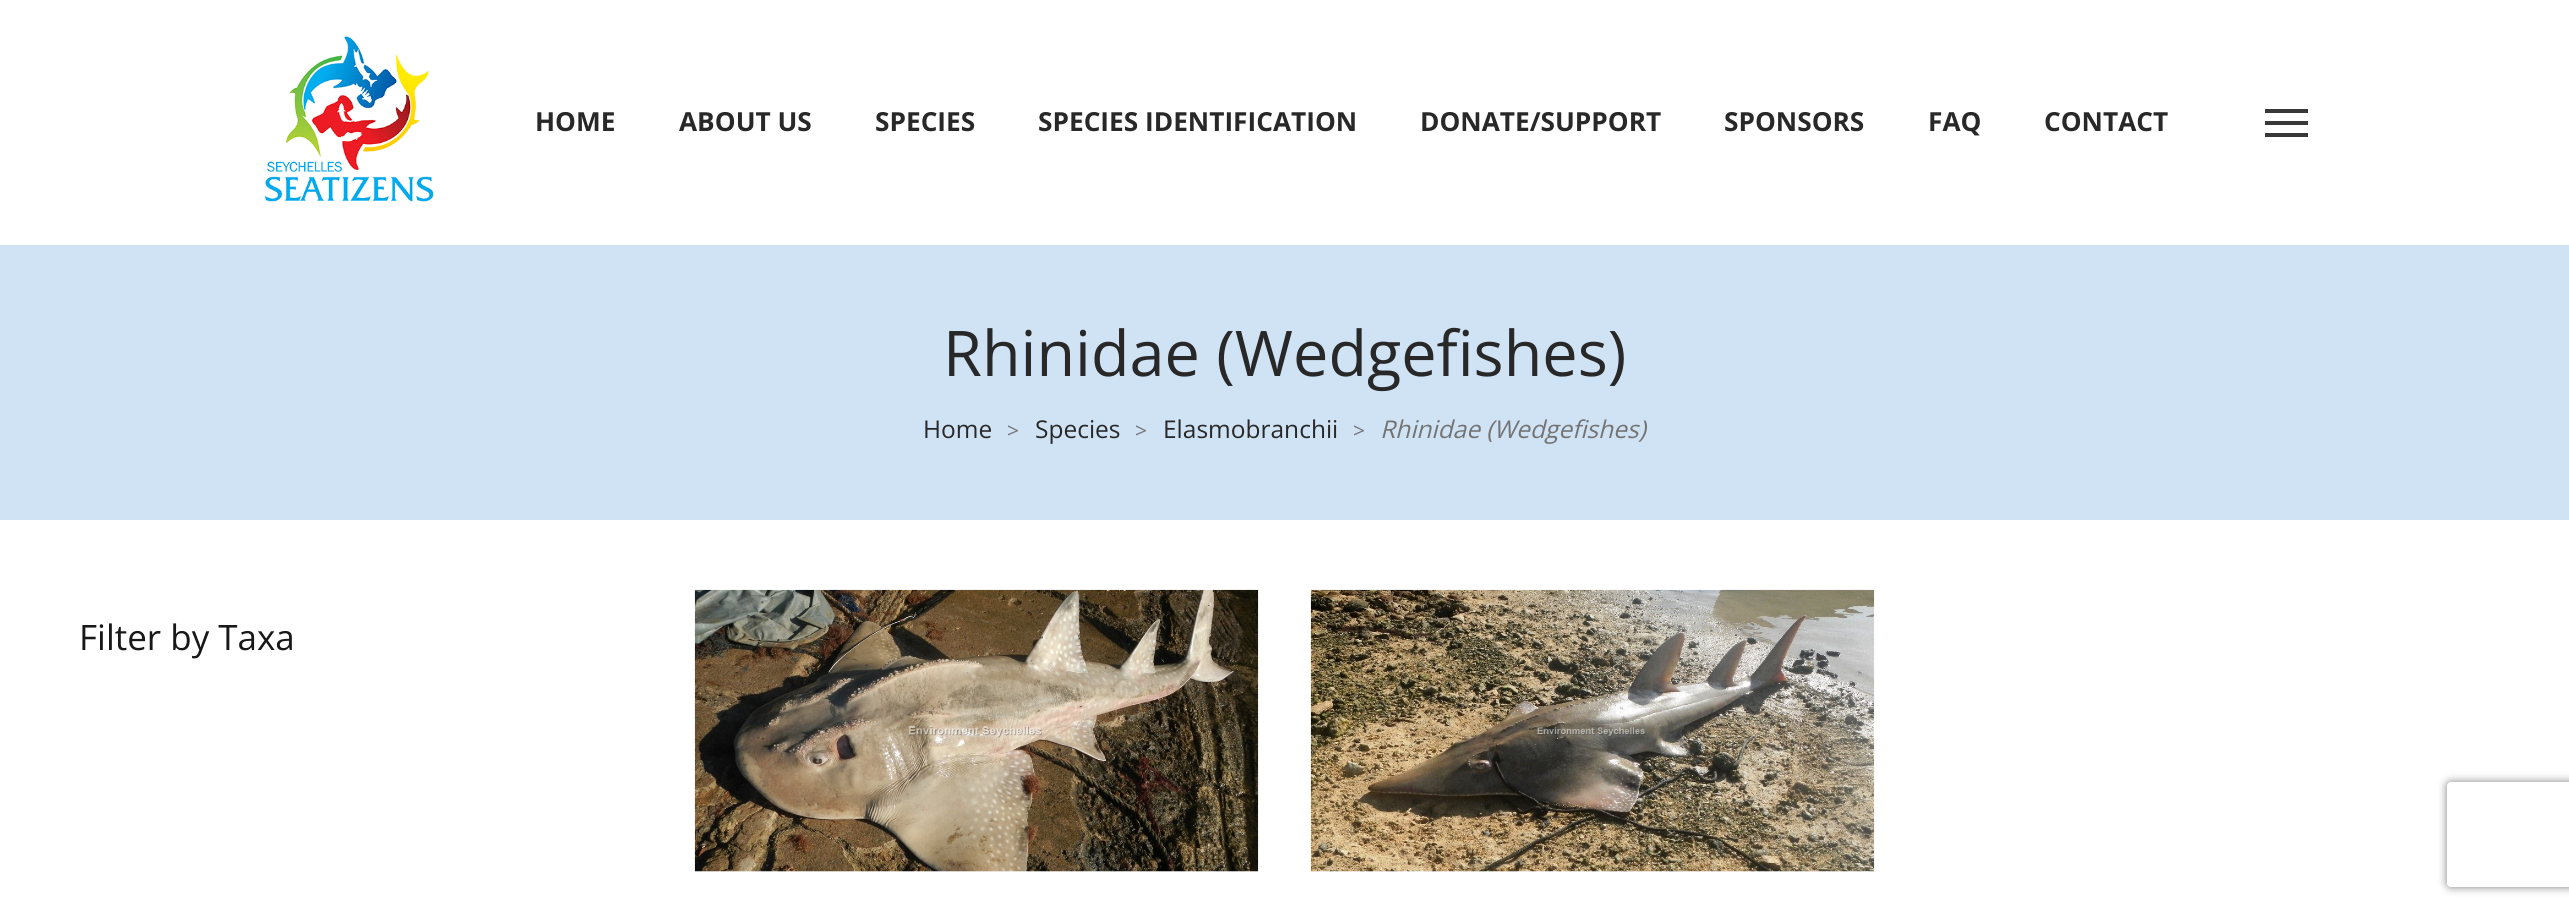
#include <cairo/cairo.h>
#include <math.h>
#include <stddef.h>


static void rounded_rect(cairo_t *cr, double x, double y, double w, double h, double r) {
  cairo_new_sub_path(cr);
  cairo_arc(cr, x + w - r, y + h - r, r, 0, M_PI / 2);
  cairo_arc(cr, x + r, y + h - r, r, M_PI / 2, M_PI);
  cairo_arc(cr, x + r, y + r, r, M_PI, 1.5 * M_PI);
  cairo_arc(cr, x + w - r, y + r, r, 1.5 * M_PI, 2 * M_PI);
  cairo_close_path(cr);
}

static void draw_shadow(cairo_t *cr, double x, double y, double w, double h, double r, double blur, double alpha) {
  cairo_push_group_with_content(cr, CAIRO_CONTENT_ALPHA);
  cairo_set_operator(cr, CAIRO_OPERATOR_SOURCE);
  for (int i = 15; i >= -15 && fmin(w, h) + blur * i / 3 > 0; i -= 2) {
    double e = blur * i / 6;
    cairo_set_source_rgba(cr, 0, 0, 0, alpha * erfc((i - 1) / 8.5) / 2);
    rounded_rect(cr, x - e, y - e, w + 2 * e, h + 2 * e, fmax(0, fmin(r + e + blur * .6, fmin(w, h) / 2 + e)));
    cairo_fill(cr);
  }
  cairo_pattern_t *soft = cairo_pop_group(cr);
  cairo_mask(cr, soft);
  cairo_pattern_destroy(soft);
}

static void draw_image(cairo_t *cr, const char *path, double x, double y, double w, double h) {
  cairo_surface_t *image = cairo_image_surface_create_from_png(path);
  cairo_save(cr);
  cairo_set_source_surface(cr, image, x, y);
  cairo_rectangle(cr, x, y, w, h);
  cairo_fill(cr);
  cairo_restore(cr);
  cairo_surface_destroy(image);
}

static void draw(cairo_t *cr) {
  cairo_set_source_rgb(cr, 1, 1, 1);
  cairo_paint(cr);
  draw_image(cr, "images/1.png", 264, 36, 170, 166);
  cairo_set_source_rgb(cr, 56 / 255.0, 56 / 255.0, 56 / 255.0);
  cairo_rectangle(cr, 2265, 109, 43, 4);
  cairo_fill(cr);
  cairo_rectangle(cr, 2265, 121, 43, 4);
  cairo_fill(cr);
  cairo_rectangle(cr, 2265, 133, 43, 4);
  cairo_fill(cr);
  cairo_set_source_rgb(cr, 208 / 255.0, 227 / 255.0, 245 / 255.0);
  cairo_rectangle(cr, 0, 245, 2569, 275);
  cairo_fill(cr);
  cairo_set_source_rgb(cr, 248 / 255.0, 248 / 255.0, 248 / 255.0);
  cairo_rectangle(cr, 695, 871, 563, 1);
  cairo_fill(cr);
  draw_image(cr, "images/2.png", 694, 589, 565, 283);
  cairo_rectangle(cr, 1311, 871, 563, 1);
  cairo_fill(cr);
  draw_image(cr, "images/3.png", 1310, 589, 565, 283);
  cairo_save(cr);
  cairo_set_fill_rule(cr, CAIRO_FILL_RULE_EVEN_ODD);
  cairo_new_path(cr);
  cairo_move_to(cr, 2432, 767);
  cairo_line_to(cr, 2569, 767);
  cairo_line_to(cr, 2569, 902);
  cairo_line_to(cr, 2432, 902);
  cairo_close_path(cr);
  cairo_move_to(cr, 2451, 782);
  cairo_line_to(cr, 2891, 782);
  cairo_curve_to(cr, 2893, 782, 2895, 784, 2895, 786);
  cairo_line_to(cr, 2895, 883);
  cairo_curve_to(cr, 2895, 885, 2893, 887, 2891, 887);
  cairo_line_to(cr, 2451, 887);
  cairo_curve_to(cr, 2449, 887, 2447, 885, 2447, 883);
  cairo_line_to(cr, 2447, 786);
  cairo_curve_to(cr, 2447, 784, 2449, 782, 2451, 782);
  cairo_close_path(cr);
  cairo_clip(cr);
  cairo_set_source_rgb(cr, 128 / 255.0, 128 / 255.0, 128 / 255.0);
  draw_shadow(cr, 2447, 782, 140, 105, 4, 4.5, 1);
  cairo_restore(cr);
  cairo_select_font_face(cr, "Open Sans", CAIRO_FONT_SLANT_NORMAL, CAIRO_FONT_WEIGHT_BOLD);
  cairo_set_font_size(cr, 26.25);
  cairo_set_source_rgb(cr, 40 / 255.0, 40 / 255.0, 40 / 255.0);
  cairo_move_to(cr, 535, 131);
  cairo_show_text(cr, "HOME");
  cairo_move_to(cr, 679, 131);
  cairo_show_text(cr, "ABOUT US");
  cairo_move_to(cr, 875, 131);
  cairo_show_text(cr, "SPECIES");
  cairo_move_to(cr, 1038, 131);
  cairo_show_text(cr, "SPECIES IDENTIFICATION");
  cairo_move_to(cr, 1420, 131);
  cairo_show_text(cr, "DONATE/SUPPORT");
  cairo_move_to(cr, 1724, 131);
  cairo_show_text(cr, "SPONSORS");
  cairo_move_to(cr, 1928, 131);
  cairo_show_text(cr, "FAQ");
  cairo_move_to(cr, 2044, 131);
  cairo_show_text(cr, "CONTACT");
  cairo_select_font_face(cr, "Open Sans", CAIRO_FONT_SLANT_NORMAL, CAIRO_FONT_WEIGHT_NORMAL);
  cairo_set_font_size(cr, 63);
  cairo_move_to(cr, 943, 376);
  cairo_show_text(cr, "Rhinidae (Wedgefishes)");
  cairo_set_font_size(cr, 24.5);
  cairo_move_to(cr, 923, 438);
  cairo_show_text(cr, "Home");
  cairo_set_font_size(cr, 21);
  cairo_set_source_rgb(cr, 115 / 255.0, 115 / 255.0, 115 / 255.0);
  cairo_move_to(cr, 1007, 438);
  cairo_show_text(cr, ">");
  cairo_set_font_size(cr, 24.5);
  cairo_set_source_rgb(cr, 40 / 255.0, 40 / 255.0, 40 / 255.0);
  cairo_move_to(cr, 1035, 438);
  cairo_show_text(cr, "Species");
  cairo_set_font_size(cr, 21);
  cairo_set_source_rgb(cr, 115 / 255.0, 115 / 255.0, 115 / 255.0);
  cairo_move_to(cr, 1135, 438);
  cairo_show_text(cr, ">");
  cairo_set_font_size(cr, 24.5);
  cairo_set_source_rgb(cr, 40 / 255.0, 40 / 255.0, 40 / 255.0);
  cairo_move_to(cr, 1163, 438);
  cairo_show_text(cr, "Elasmobranchii");
  cairo_set_font_size(cr, 21);
  cairo_set_source_rgb(cr, 115 / 255.0, 115 / 255.0, 115 / 255.0);
  cairo_move_to(cr, 1353, 438);
  cairo_show_text(cr, ">");
  cairo_select_font_face(cr, "Open Sans", CAIRO_FONT_SLANT_ITALIC, CAIRO_FONT_WEIGHT_NORMAL);
  cairo_set_font_size(cr, 24.5);
  cairo_move_to(cr, 1380, 438);
  cairo_show_text(cr, "Rhinidae (Wedgefishes)");
  cairo_select_font_face(cr, "Open Sans", CAIRO_FONT_SLANT_NORMAL, CAIRO_FONT_WEIGHT_NORMAL);
  cairo_set_font_size(cr, 35);
  cairo_set_source_rgb(cr, 24 / 255.0, 24 / 255.0, 24 / 255.0);
  cairo_move_to(cr, 79, 650);
  cairo_show_text(cr, "Filter by Taxa");
}

int main(void) {
  cairo_surface_t *surface = cairo_image_surface_create(CAIRO_FORMAT_RGB24, 2569, 911);
  cairo_t *cr = cairo_create(surface);
  cairo_font_options_t *options = cairo_font_options_create();
  cairo_font_options_set_hint_metrics(options, CAIRO_HINT_METRICS_OFF);
  cairo_font_options_set_hint_style(options, CAIRO_HINT_STYLE_NONE);
  cairo_set_font_options(cr, options);
  cairo_set_miter_limit(cr, 4);
  draw(cr);
  cairo_surface_write_to_png(surface, "out.png");
  cairo_font_options_destroy(options);
  cairo_destroy(cr);
  cairo_surface_destroy(surface);
  return 0;
}
